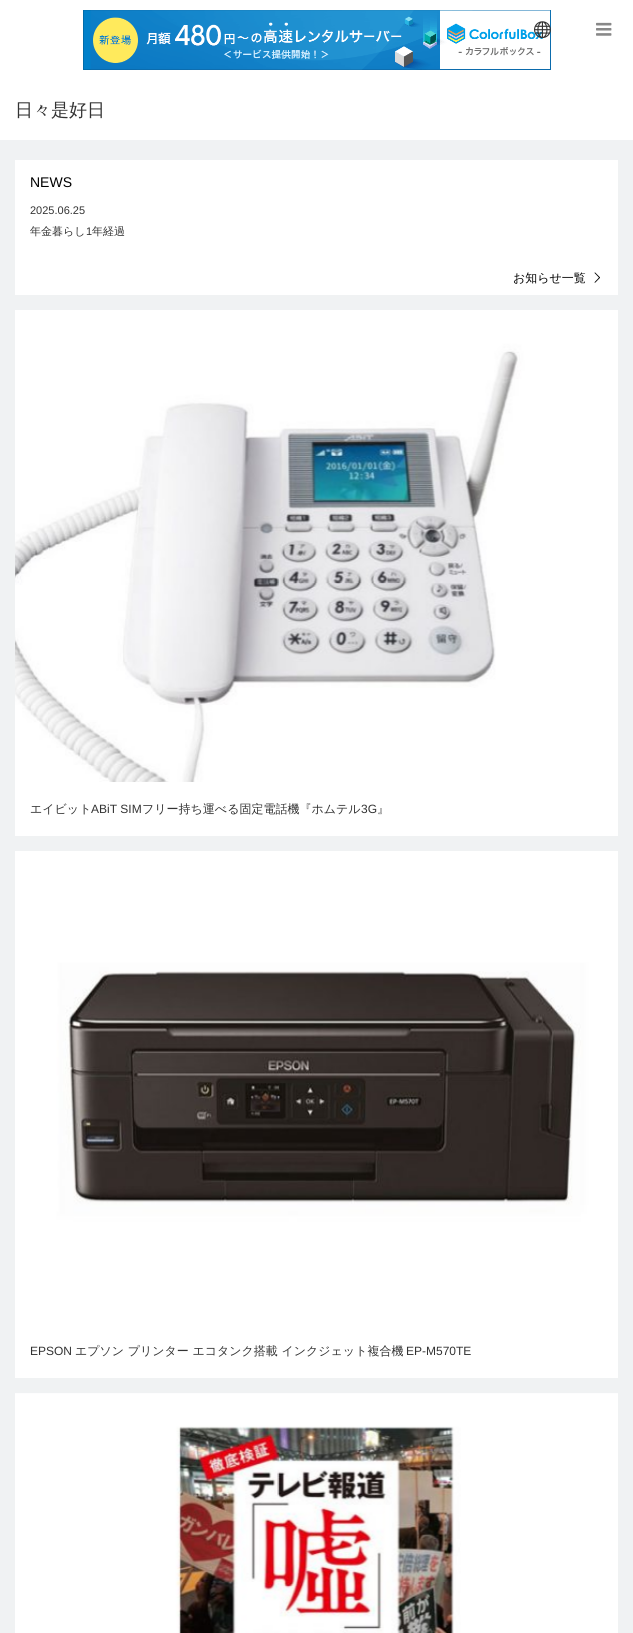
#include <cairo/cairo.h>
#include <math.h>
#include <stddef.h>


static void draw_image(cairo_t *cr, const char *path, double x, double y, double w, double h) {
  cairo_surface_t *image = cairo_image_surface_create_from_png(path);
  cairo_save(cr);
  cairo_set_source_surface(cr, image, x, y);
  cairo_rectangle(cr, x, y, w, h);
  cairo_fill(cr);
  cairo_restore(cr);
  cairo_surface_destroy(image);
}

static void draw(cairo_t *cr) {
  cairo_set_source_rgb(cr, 1, 1, 1);
  cairo_paint(cr);
  draw_image(cr, "images/1.png", 83, 10, 468, 60);
  draw_image(cr, "images/2.png", 534, 21, 17, 18);
  draw_image(cr, "images/3.png", 596, 22, 16, 14);
  cairo_set_source_rgb(cr, 240 / 255.0, 242 / 255.0, 243 / 255.0);
  cairo_rectangle(cr, 0, 140, 633, 1493);
  cairo_fill(cr);
  cairo_set_source_rgb(cr, 1, 1, 1);
  cairo_rectangle(cr, 15, 160, 603, 135);
  cairo_fill(cr);
  draw_image(cr, "images/4.png", 594, 272, 6, 11);
  cairo_rectangle(cr, 15, 310, 603, 526);
  cairo_fill(cr);
  draw_image(cr, "images/5.png", 15, 310, 603, 472);
  cairo_rectangle(cr, 15, 1323, 603, 55);
  cairo_fill(cr);
  draw_image(cr, "images/6.png", 15, 851, 603, 473);
  draw_image(cr, "images/7.png", 15, 1393, 603, 240);
  cairo_select_font_face(cr, "WenQuanYi Zen Hei Medium", CAIRO_FONT_SLANT_NORMAL, CAIRO_FONT_WEIGHT_NORMAL);
  cairo_set_font_size(cr, 18);
  cairo_set_source_rgb(cr, 51 / 255.0, 51 / 255.0, 51 / 255.0);
  cairo_move_to(cr, 15, 116);
  cairo_show_text(cr, "日々是好日");
  cairo_select_font_face(cr, "Liberation Sans", CAIRO_FONT_SLANT_NORMAL, CAIRO_FONT_WEIGHT_NORMAL);
  cairo_set_font_size(cr, 14);
  cairo_set_source_rgb(cr, 0, 0, 0);
  cairo_move_to(cr, 30, 187);
  cairo_show_text(cr, "NEWS");
  cairo_set_font_size(cr, 11);
  cairo_set_source_rgb(cr, 51 / 255.0, 51 / 255.0, 51 / 255.0);
  cairo_move_to(cr, 30, 214);
  cairo_show_text(cr, "2025.06.25");
  cairo_select_font_face(cr, "WenQuanYi Zen Hei Medium", CAIRO_FONT_SLANT_NORMAL, CAIRO_FONT_WEIGHT_NORMAL);
  cairo_move_to(cr, 30, 235);
  cairo_show_text(cr, "年金暮らし");
  cairo_select_font_face(cr, "Liberation Sans", CAIRO_FONT_SLANT_NORMAL, CAIRO_FONT_WEIGHT_NORMAL);
  cairo_move_to(cr, 86, 235);
  cairo_show_text(cr, "1");
  cairo_select_font_face(cr, "WenQuanYi Zen Hei Medium", CAIRO_FONT_SLANT_NORMAL, CAIRO_FONT_WEIGHT_NORMAL);
  cairo_move_to(cr, 92, 235);
  cairo_show_text(cr, "年経過");
  cairo_set_font_size(cr, 12);
  cairo_set_source_rgb(cr, 0, 0, 0);
  cairo_move_to(cr, 513, 282);
  cairo_show_text(cr, "お知らせ一覧");
  cairo_set_source_rgb(cr, 51 / 255.0, 51 / 255.0, 51 / 255.0);
  cairo_move_to(cr, 30, 813);
  cairo_show_text(cr, "エイビット");
  cairo_select_font_face(cr, "Liberation Sans", CAIRO_FONT_SLANT_NORMAL, CAIRO_FONT_WEIGHT_NORMAL);
  cairo_move_to(cr, 91, 813);
  cairo_show_text(cr, "ABiT SIM");
  cairo_select_font_face(cr, "WenQuanYi Zen Hei Medium", CAIRO_FONT_SLANT_NORMAL, CAIRO_FONT_WEIGHT_NORMAL);
  cairo_move_to(cr, 142, 813);
  cairo_show_text(cr, "フリー持ち運べる固定電話機『ホムテル");
  cairo_select_font_face(cr, "Liberation Sans", CAIRO_FONT_SLANT_NORMAL, CAIRO_FONT_WEIGHT_NORMAL);
  cairo_move_to(cr, 361, 813);
  cairo_show_text(cr, "3G");
  cairo_select_font_face(cr, "WenQuanYi Zen Hei Medium", CAIRO_FONT_SLANT_NORMAL, CAIRO_FONT_WEIGHT_NORMAL);
  cairo_move_to(cr, 377, 813);
  cairo_show_text(cr, "』");
  cairo_select_font_face(cr, "Liberation Sans", CAIRO_FONT_SLANT_NORMAL, CAIRO_FONT_WEIGHT_NORMAL);
  cairo_move_to(cr, 30, 1355);
  cairo_show_text(cr, "EPSON");
  cairo_select_font_face(cr, "WenQuanYi Zen Hei Medium", CAIRO_FONT_SLANT_NORMAL, CAIRO_FONT_WEIGHT_NORMAL);
  cairo_move_to(cr, 75, 1355);
  cairo_show_text(cr, "エプソン プリンター エコタンク搭載 インクジェット複合機");
  cairo_select_font_face(cr, "Liberation Sans", CAIRO_FONT_SLANT_NORMAL, CAIRO_FONT_WEIGHT_NORMAL);
  cairo_move_to(cr, 406, 1355);
  cairo_show_text(cr, "EP-M570TE");
}

int main(void) {
  cairo_surface_t *surface = cairo_image_surface_create(CAIRO_FORMAT_RGB24, 633, 1633);
  cairo_t *cr = cairo_create(surface);
  cairo_font_options_t *options = cairo_font_options_create();
  cairo_font_options_set_hint_metrics(options, CAIRO_HINT_METRICS_OFF);
  cairo_font_options_set_hint_style(options, CAIRO_HINT_STYLE_NONE);
  cairo_set_font_options(cr, options);
  cairo_set_miter_limit(cr, 4);
  draw(cr);
  cairo_surface_write_to_png(surface, "out.png");
  cairo_font_options_destroy(options);
  cairo_destroy(cr);
  cairo_surface_destroy(surface);
  return 0;
}
